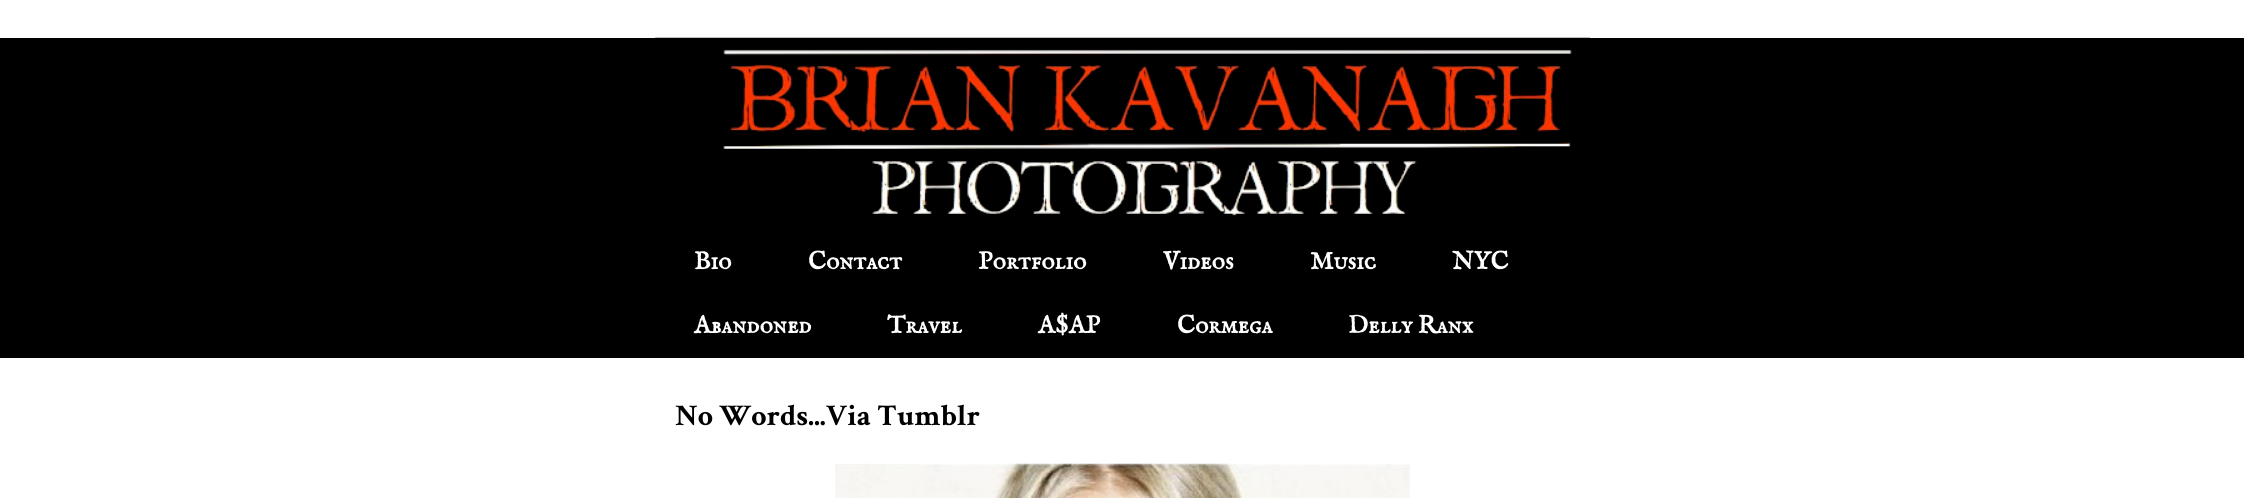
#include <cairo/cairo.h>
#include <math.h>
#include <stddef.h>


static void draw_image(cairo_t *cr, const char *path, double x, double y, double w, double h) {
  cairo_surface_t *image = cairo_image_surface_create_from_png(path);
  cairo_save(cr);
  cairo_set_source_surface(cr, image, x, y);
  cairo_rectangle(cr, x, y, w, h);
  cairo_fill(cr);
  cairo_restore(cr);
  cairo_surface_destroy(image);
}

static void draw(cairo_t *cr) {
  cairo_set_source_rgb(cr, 1, 1, 1);
  cairo_paint(cr);
  cairo_set_source_rgb(cr, 0, 0, 0);
  cairo_rectangle(cr, 0, 38, 2244, 320);
  cairo_fill(cr);
  draw_image(cr, "images/1.png", 655, 37, 935, 179);
  draw_image(cr, "images/2.png", 835, 463, 575, 35);
  cairo_select_font_face(cr, "IM FELL English SC", CAIRO_FONT_SLANT_NORMAL, CAIRO_FONT_WEIGHT_BOLD);
  cairo_set_font_size(cr, 25);
  cairo_set_source_rgb(cr, 1, 1, 1);
  cairo_move_to(cr, 694, 269);
  cairo_show_text(cr, "Bio");
  cairo_move_to(cr, 808, 269);
  cairo_show_text(cr, "Contact");
  cairo_move_to(cr, 978, 269);
  cairo_show_text(cr, "Portfolio");
  cairo_move_to(cr, 1163, 269);
  cairo_show_text(cr, "Videos");
  cairo_move_to(cr, 1310, 269);
  cairo_show_text(cr, "Music");
  cairo_move_to(cr, 1452, 269);
  cairo_show_text(cr, "NYC");
  cairo_move_to(cr, 694, 333);
  cairo_show_text(cr, "Abandoned");
  cairo_move_to(cr, 887, 333);
  cairo_show_text(cr, "Travel");
  cairo_move_to(cr, 1038, 333);
  cairo_show_text(cr, "A$AP");
  cairo_move_to(cr, 1177, 333);
  cairo_show_text(cr, "Cormega");
  cairo_move_to(cr, 1348, 333);
  cairo_show_text(cr, "Delly Ranx");
  cairo_select_font_face(cr, "Crimson Text", CAIRO_FONT_SLANT_NORMAL, CAIRO_FONT_WEIGHT_BOLD);
  cairo_set_font_size(cr, 30);
  cairo_set_source_rgb(cr, 0, 0, 0);
  cairo_move_to(cr, 675, 425);
  cairo_show_text(cr, "No Words...Via Tumblr");
}

int main(void) {
  cairo_surface_t *surface = cairo_image_surface_create(CAIRO_FORMAT_RGB24, 2244, 498);
  cairo_t *cr = cairo_create(surface);
  cairo_font_options_t *options = cairo_font_options_create();
  cairo_font_options_set_hint_metrics(options, CAIRO_HINT_METRICS_OFF);
  cairo_font_options_set_hint_style(options, CAIRO_HINT_STYLE_NONE);
  cairo_set_font_options(cr, options);
  cairo_set_miter_limit(cr, 4);
  draw(cr);
  cairo_surface_write_to_png(surface, "out.png");
  cairo_font_options_destroy(options);
  cairo_destroy(cr);
  cairo_surface_destroy(surface);
  return 0;
}
